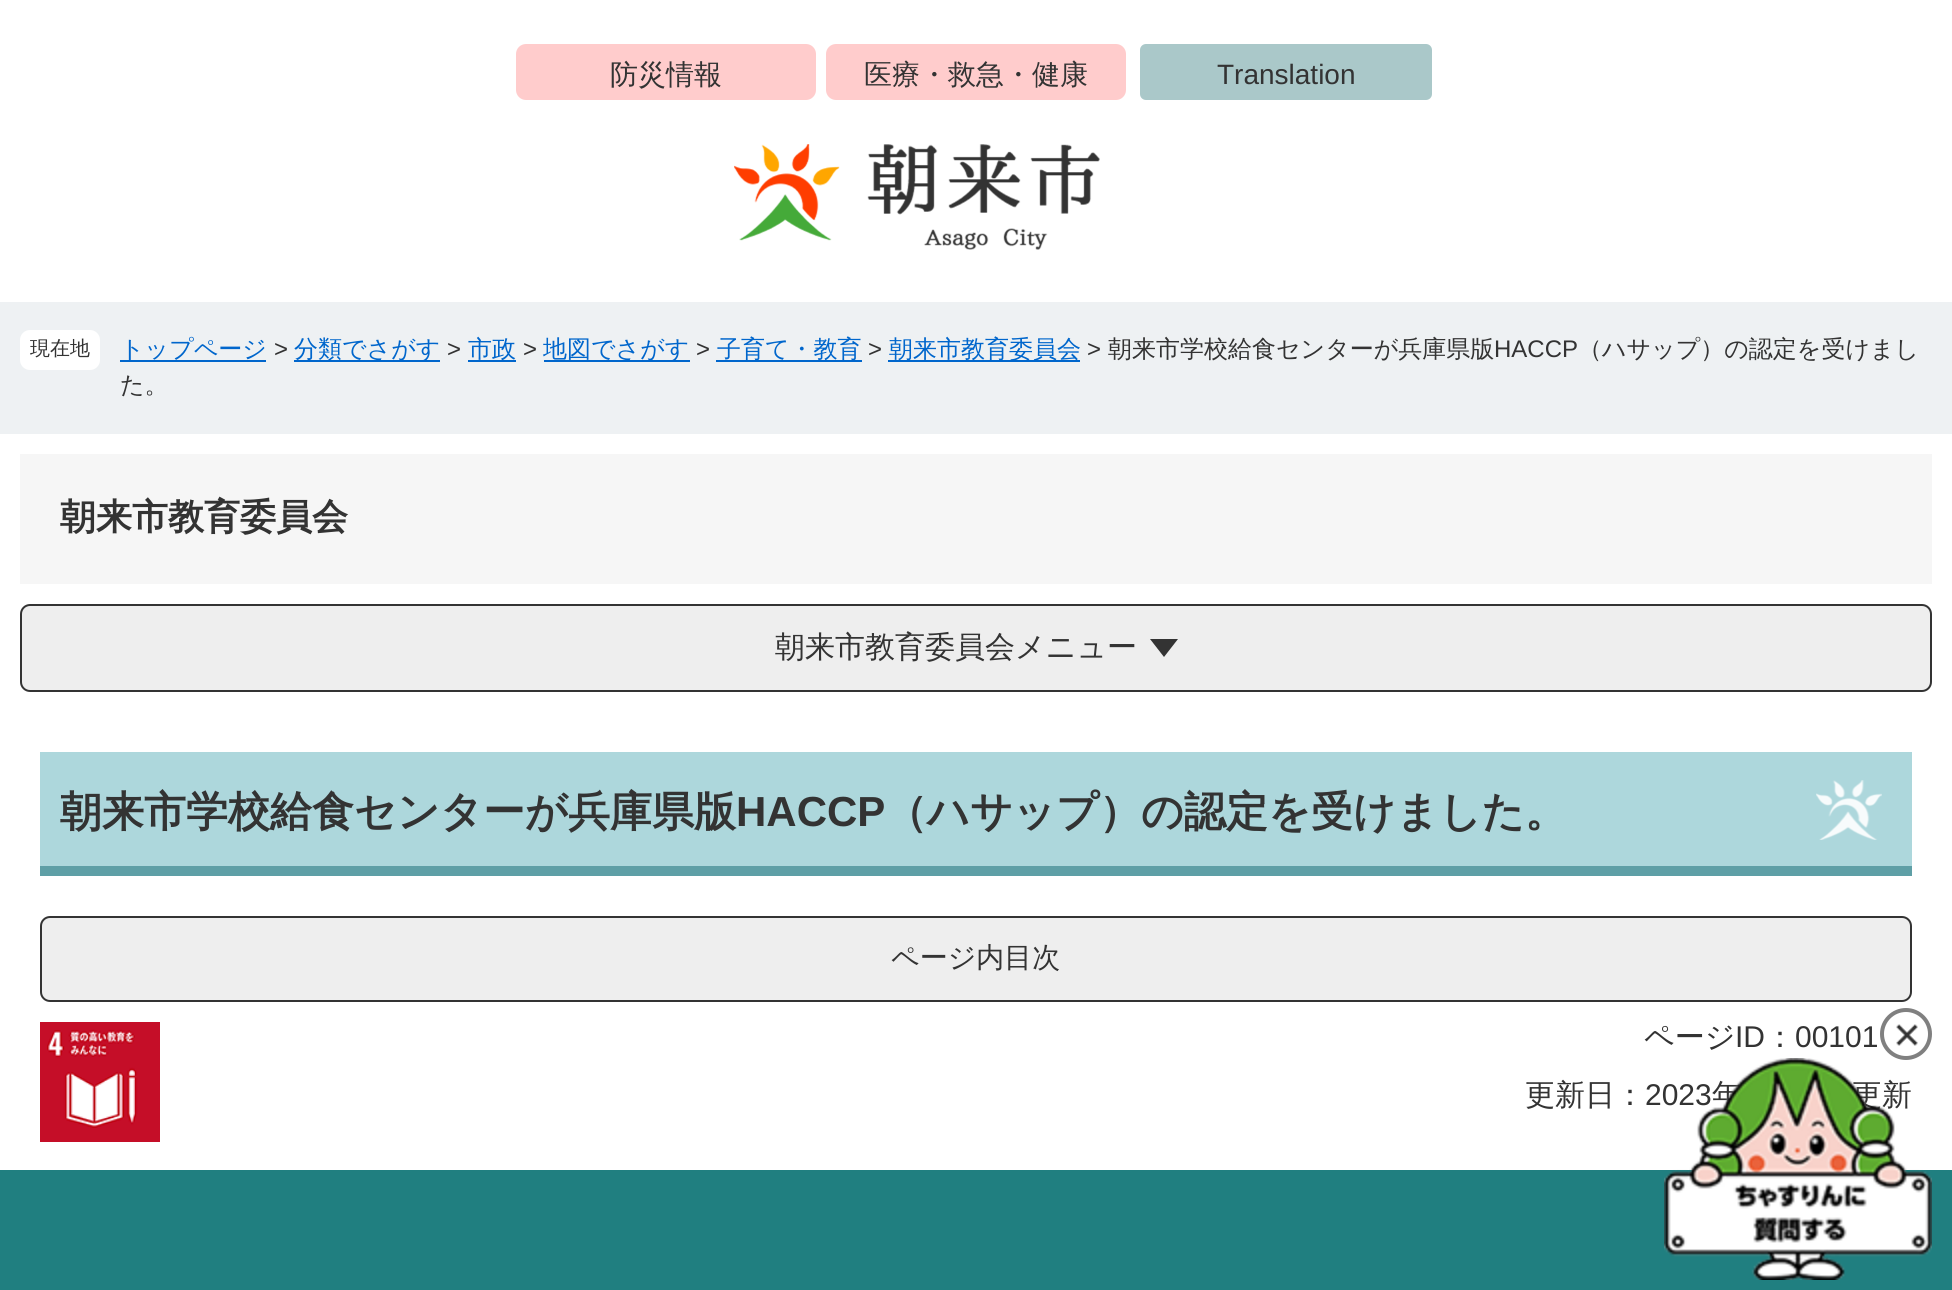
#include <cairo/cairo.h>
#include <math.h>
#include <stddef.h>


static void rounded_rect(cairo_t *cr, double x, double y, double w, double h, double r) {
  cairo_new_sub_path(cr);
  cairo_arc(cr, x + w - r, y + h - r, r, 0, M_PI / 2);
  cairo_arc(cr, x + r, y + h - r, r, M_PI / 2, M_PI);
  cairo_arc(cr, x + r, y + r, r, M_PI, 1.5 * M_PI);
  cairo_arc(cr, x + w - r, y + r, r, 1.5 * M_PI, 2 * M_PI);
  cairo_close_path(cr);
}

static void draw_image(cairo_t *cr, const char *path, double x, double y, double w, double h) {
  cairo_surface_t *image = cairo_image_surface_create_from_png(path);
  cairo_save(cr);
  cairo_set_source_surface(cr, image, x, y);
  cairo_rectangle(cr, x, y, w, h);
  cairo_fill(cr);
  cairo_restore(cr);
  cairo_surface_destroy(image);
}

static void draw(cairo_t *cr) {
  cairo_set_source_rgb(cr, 1, 1, 1);
  cairo_paint(cr);
  cairo_set_source_rgb(cr, 1, 204 / 255.0, 204 / 255.0);
  rounded_rect(cr, 516, 44, 300, 56, 10);
  cairo_fill(cr);
  rounded_rect(cr, 826, 44, 300, 56, 10);
  cairo_fill(cr);
  cairo_set_source_rgb(cr, 170 / 255.0, 200 / 255.0, 201 / 255.0);
  rounded_rect(cr, 1138, 42, 296, 60, 8);
  cairo_fill_preserve(cr);
  cairo_set_source_rgb(cr, 1, 1, 1);
  cairo_set_line_width(cr, 4);
  cairo_stroke(cr);
  draw_image(cr, "images/1.png", 734, 144, 366, 106);
  cairo_set_source_rgb(cr, 32 / 255.0, 127 / 255.0, 128 / 255.0);
  cairo_rectangle(cr, 0, 1170, 1952, 120);
  cairo_fill(cr);
  cairo_set_source_rgb(cr, 238 / 255.0, 241 / 255.0, 243 / 255.0);
  cairo_rectangle(cr, 0, 302, 1952, 132);
  cairo_fill(cr);
  cairo_set_source_rgb(cr, 1, 1, 1);
  rounded_rect(cr, 20, 330, 80, 40, 10);
  cairo_fill(cr);
  cairo_set_source_rgb(cr, 0, 102 / 255.0, 204 / 255.0);
  cairo_rectangle(cr, 120, 360, 146, 2);
  cairo_fill(cr);
  cairo_rectangle(cr, 294, 360, 146, 2);
  cairo_fill(cr);
  cairo_rectangle(cr, 468, 360, 48, 2);
  cairo_fill(cr);
  cairo_rectangle(cr, 544, 360, 146, 2);
  cairo_fill(cr);
  cairo_rectangle(cr, 716, 360, 146, 2);
  cairo_fill(cr);
  cairo_rectangle(cr, 888, 360, 192, 2);
  cairo_fill(cr);
  cairo_set_source_rgb(cr, 246 / 255.0, 246 / 255.0, 246 / 255.0);
  cairo_rectangle(cr, 20, 454, 1912, 130);
  cairo_fill(cr);
  cairo_set_source_rgb(cr, 238 / 255.0, 238 / 255.0, 238 / 255.0);
  rounded_rect(cr, 21, 605, 1910, 86, 9);
  cairo_fill_preserve(cr);
  cairo_set_source_rgb(cr, 51 / 255.0, 51 / 255.0, 51 / 255.0);
  cairo_set_line_width(cr, 2);
  cairo_stroke(cr);
  cairo_new_path(cr);
  cairo_move_to(cr, 1150, 639);
  cairo_line_to(cr, 1178, 639);
  cairo_line_to(cr, 1164, 657);
  cairo_close_path(cr);
  cairo_fill(cr);
  cairo_set_source_rgb(cr, 173 / 255.0, 215 / 255.0, 220 / 255.0);
  cairo_rectangle(cr, 40, 752, 1872, 114);
  cairo_fill(cr);
  draw_image(cr, "images/2.png", 1816, 780, 66, 60);
  cairo_set_source_rgb(cr, 94 / 255.0, 159 / 255.0, 166 / 255.0);
  cairo_rectangle(cr, 40, 866, 1872, 10);
  cairo_fill(cr);
  cairo_set_source_rgb(cr, 238 / 255.0, 238 / 255.0, 238 / 255.0);
  rounded_rect(cr, 41, 917, 1870, 84, 9);
  cairo_fill_preserve(cr);
  cairo_set_source_rgb(cr, 51 / 255.0, 51 / 255.0, 51 / 255.0);
  cairo_stroke(cr);
  draw_image(cr, "images/3.png", 40, 1022, 120, 120);
  draw_image(cr, "images/4.png", 1896, 1024, 22, 22);
  cairo_select_font_face(cr, "WenQuanYi Zen Hei Medium", CAIRO_FONT_SLANT_NORMAL, CAIRO_FONT_WEIGHT_NORMAL);
  cairo_set_font_size(cr, 28);
  cairo_move_to(cr, 610, 84);
  cairo_show_text(cr, "防災情報");
  cairo_move_to(cr, 864, 84);
  cairo_show_text(cr, "医療・救急・健康");
  cairo_select_font_face(cr, "Liberation Sans", CAIRO_FONT_SLANT_NORMAL, CAIRO_FONT_WEIGHT_NORMAL);
  cairo_move_to(cr, 1217, 84);
  cairo_show_text(cr, "Translation");
  cairo_select_font_face(cr, "WenQuanYi Zen Hei Medium", CAIRO_FONT_SLANT_NORMAL, CAIRO_FONT_WEIGHT_NORMAL);
  cairo_set_font_size(cr, 20);
  cairo_move_to(cr, 30, 355);
  cairo_show_text(cr, "現在地");
  cairo_set_font_size(cr, 24);
  cairo_set_source_rgb(cr, 0, 102 / 255.0, 204 / 255.0);
  cairo_move_to(cr, 120, 357);
  cairo_show_text(cr, "トップページ");
  cairo_select_font_face(cr, "Liberation Sans", CAIRO_FONT_SLANT_NORMAL, CAIRO_FONT_WEIGHT_NORMAL);
  cairo_set_source_rgb(cr, 51 / 255.0, 51 / 255.0, 51 / 255.0);
  cairo_move_to(cr, 274, 357);
  cairo_show_text(cr, ">");
  cairo_select_font_face(cr, "WenQuanYi Zen Hei Medium", CAIRO_FONT_SLANT_NORMAL, CAIRO_FONT_WEIGHT_NORMAL);
  cairo_set_source_rgb(cr, 0, 102 / 255.0, 204 / 255.0);
  cairo_move_to(cr, 294, 357);
  cairo_show_text(cr, "分類でさがす");
  cairo_select_font_face(cr, "Liberation Sans", CAIRO_FONT_SLANT_NORMAL, CAIRO_FONT_WEIGHT_NORMAL);
  cairo_set_source_rgb(cr, 51 / 255.0, 51 / 255.0, 51 / 255.0);
  cairo_move_to(cr, 447, 357);
  cairo_show_text(cr, ">");
  cairo_select_font_face(cr, "WenQuanYi Zen Hei Medium", CAIRO_FONT_SLANT_NORMAL, CAIRO_FONT_WEIGHT_NORMAL);
  cairo_set_source_rgb(cr, 0, 102 / 255.0, 204 / 255.0);
  cairo_move_to(cr, 468, 357);
  cairo_show_text(cr, "市政");
  cairo_select_font_face(cr, "Liberation Sans", CAIRO_FONT_SLANT_NORMAL, CAIRO_FONT_WEIGHT_NORMAL);
  cairo_set_source_rgb(cr, 51 / 255.0, 51 / 255.0, 51 / 255.0);
  cairo_move_to(cr, 523, 357);
  cairo_show_text(cr, ">");
  cairo_select_font_face(cr, "WenQuanYi Zen Hei Medium", CAIRO_FONT_SLANT_NORMAL, CAIRO_FONT_WEIGHT_NORMAL);
  cairo_set_source_rgb(cr, 0, 102 / 255.0, 204 / 255.0);
  cairo_move_to(cr, 543, 357);
  cairo_show_text(cr, "地図でさがす");
  cairo_select_font_face(cr, "Liberation Sans", CAIRO_FONT_SLANT_NORMAL, CAIRO_FONT_WEIGHT_NORMAL);
  cairo_set_source_rgb(cr, 51 / 255.0, 51 / 255.0, 51 / 255.0);
  cairo_move_to(cr, 696, 357);
  cairo_show_text(cr, ">");
  cairo_select_font_face(cr, "WenQuanYi Zen Hei Medium", CAIRO_FONT_SLANT_NORMAL, CAIRO_FONT_WEIGHT_NORMAL);
  cairo_set_source_rgb(cr, 0, 102 / 255.0, 204 / 255.0);
  cairo_move_to(cr, 717, 357);
  cairo_show_text(cr, "子育て・教育");
  cairo_select_font_face(cr, "Liberation Sans", CAIRO_FONT_SLANT_NORMAL, CAIRO_FONT_WEIGHT_NORMAL);
  cairo_set_source_rgb(cr, 51 / 255.0, 51 / 255.0, 51 / 255.0);
  cairo_move_to(cr, 868, 357);
  cairo_show_text(cr, ">");
  cairo_select_font_face(cr, "WenQuanYi Zen Hei Medium", CAIRO_FONT_SLANT_NORMAL, CAIRO_FONT_WEIGHT_NORMAL);
  cairo_set_source_rgb(cr, 0, 102 / 255.0, 204 / 255.0);
  cairo_move_to(cr, 889, 357);
  cairo_show_text(cr, "朝来市教育委員会");
  cairo_select_font_face(cr, "Liberation Sans", CAIRO_FONT_SLANT_NORMAL, CAIRO_FONT_WEIGHT_NORMAL);
  cairo_set_source_rgb(cr, 51 / 255.0, 51 / 255.0, 51 / 255.0);
  cairo_move_to(cr, 1087, 357);
  cairo_show_text(cr, ">");
  cairo_select_font_face(cr, "WenQuanYi Zen Hei Medium", CAIRO_FONT_SLANT_NORMAL, CAIRO_FONT_WEIGHT_NORMAL);
  cairo_move_to(cr, 1108, 357);
  cairo_show_text(cr, "朝来市学校給食センターが兵庫県版");
  cairo_select_font_face(cr, "Liberation Sans", CAIRO_FONT_SLANT_NORMAL, CAIRO_FONT_WEIGHT_NORMAL);
  cairo_move_to(cr, 1494, 357);
  cairo_show_text(cr, "HACCP");
  cairo_select_font_face(cr, "WenQuanYi Zen Hei Medium", CAIRO_FONT_SLANT_NORMAL, CAIRO_FONT_WEIGHT_NORMAL);
  cairo_move_to(cr, 1578, 357);
  cairo_show_text(cr, "（ハサップ）の認定を受けまし");
  cairo_move_to(cr, 120, 393);
  cairo_show_text(cr, "た。");
  cairo_select_font_face(cr, "WenQuanYi Zen Hei", CAIRO_FONT_SLANT_NORMAL, CAIRO_FONT_WEIGHT_BOLD);
  cairo_set_font_size(cr, 36);
  cairo_move_to(cr, 60, 529);
  cairo_show_text(cr, "朝来市教育委員会");
  cairo_select_font_face(cr, "WenQuanYi Zen Hei Medium", CAIRO_FONT_SLANT_NORMAL, CAIRO_FONT_WEIGHT_NORMAL);
  cairo_set_font_size(cr, 30);
  cairo_move_to(cr, 775, 657);
  cairo_show_text(cr, "朝来市教育委員会メニュー");
  cairo_select_font_face(cr, "WenQuanYi Zen Hei", CAIRO_FONT_SLANT_NORMAL, CAIRO_FONT_WEIGHT_BOLD);
  cairo_set_font_size(cr, 42);
  cairo_move_to(cr, 60, 826);
  cairo_show_text(cr, "朝来市学校給食センターが兵庫県版");
  cairo_select_font_face(cr, "Liberation Sans", CAIRO_FONT_SLANT_NORMAL, CAIRO_FONT_WEIGHT_BOLD);
  cairo_move_to(cr, 736, 826);
  cairo_show_text(cr, "HACCP");
  cairo_select_font_face(cr, "WenQuanYi Zen Hei", CAIRO_FONT_SLANT_NORMAL, CAIRO_FONT_WEIGHT_BOLD);
  cairo_move_to(cr, 885, 826);
  cairo_show_text(cr, "（ハサップ）の認定を受けました。");
  cairo_select_font_face(cr, "WenQuanYi Zen Hei Medium", CAIRO_FONT_SLANT_NORMAL, CAIRO_FONT_WEIGHT_NORMAL);
  cairo_set_font_size(cr, 28);
  cairo_move_to(cr, 891, 967);
  cairo_show_text(cr, "ページ内目次");
  cairo_set_font_size(cr, 30);
  cairo_move_to(cr, 1644, 1047);
  cairo_show_text(cr, "ページ");
  cairo_select_font_face(cr, "Liberation Sans", CAIRO_FONT_SLANT_NORMAL, CAIRO_FONT_WEIGHT_NORMAL);
  cairo_move_to(cr, 1735, 1047);
  cairo_show_text(cr, "ID");
  cairo_select_font_face(cr, "WenQuanYi Zen Hei Medium", CAIRO_FONT_SLANT_NORMAL, CAIRO_FONT_WEIGHT_NORMAL);
  cairo_move_to(cr, 1765, 1047);
  cairo_show_text(cr, "：");
  cairo_select_font_face(cr, "Liberation Sans", CAIRO_FONT_SLANT_NORMAL, CAIRO_FONT_WEIGHT_NORMAL);
  cairo_move_to(cr, 1795, 1047);
  cairo_show_text(cr, "00101");
  cairo_select_font_face(cr, "WenQuanYi Zen Hei Medium", CAIRO_FONT_SLANT_NORMAL, CAIRO_FONT_WEIGHT_NORMAL);
  cairo_move_to(cr, 1525, 1105);
  cairo_show_text(cr, "更新日：");
  cairo_select_font_face(cr, "Liberation Sans", CAIRO_FONT_SLANT_NORMAL, CAIRO_FONT_WEIGHT_NORMAL);
  cairo_move_to(cr, 1645, 1105);
  cairo_show_text(cr, "2023");
  cairo_select_font_face(cr, "WenQuanYi Zen Hei Medium", CAIRO_FONT_SLANT_NORMAL, CAIRO_FONT_WEIGHT_NORMAL);
  cairo_move_to(cr, 1712, 1105);
  cairo_show_text(cr, "年");
  cairo_move_to(cr, 1852, 1105);
  cairo_show_text(cr, "更新");
  draw_image(cr, "images/5.png", 1664, 1058, 268, 222);
  cairo_arc(cr, 1906, 1034, 24, 0, 2 * M_PI);
  cairo_set_source_rgb(cr, 128 / 255.0, 128 / 255.0, 128 / 255.0);
  cairo_set_line_width(cr, 4);
  cairo_stroke(cr);
}

int main(void) {
  cairo_surface_t *surface = cairo_image_surface_create(CAIRO_FORMAT_RGB24, 1952, 1290);
  cairo_t *cr = cairo_create(surface);
  cairo_font_options_t *options = cairo_font_options_create();
  cairo_font_options_set_hint_metrics(options, CAIRO_HINT_METRICS_OFF);
  cairo_font_options_set_hint_style(options, CAIRO_HINT_STYLE_NONE);
  cairo_set_font_options(cr, options);
  cairo_set_miter_limit(cr, 4);
  draw(cr);
  cairo_surface_write_to_png(surface, "out.png");
  cairo_font_options_destroy(options);
  cairo_destroy(cr);
  cairo_surface_destroy(surface);
  return 0;
}
